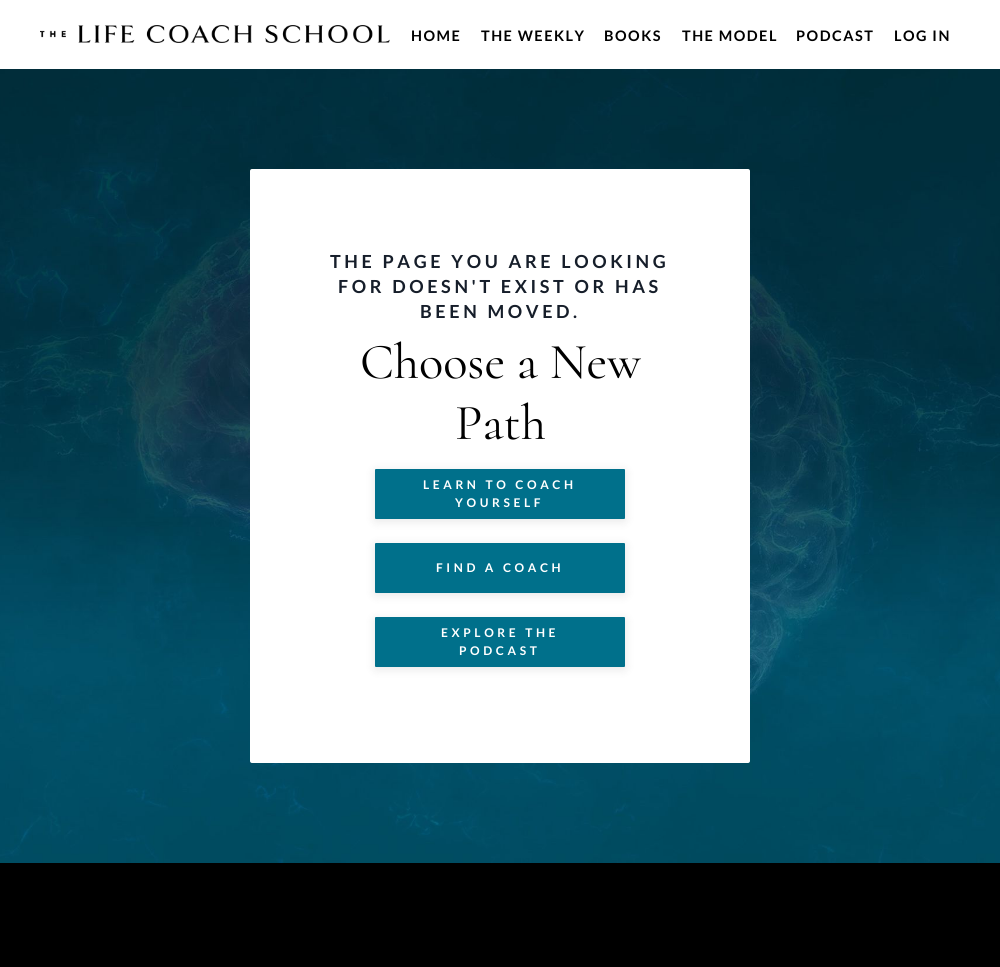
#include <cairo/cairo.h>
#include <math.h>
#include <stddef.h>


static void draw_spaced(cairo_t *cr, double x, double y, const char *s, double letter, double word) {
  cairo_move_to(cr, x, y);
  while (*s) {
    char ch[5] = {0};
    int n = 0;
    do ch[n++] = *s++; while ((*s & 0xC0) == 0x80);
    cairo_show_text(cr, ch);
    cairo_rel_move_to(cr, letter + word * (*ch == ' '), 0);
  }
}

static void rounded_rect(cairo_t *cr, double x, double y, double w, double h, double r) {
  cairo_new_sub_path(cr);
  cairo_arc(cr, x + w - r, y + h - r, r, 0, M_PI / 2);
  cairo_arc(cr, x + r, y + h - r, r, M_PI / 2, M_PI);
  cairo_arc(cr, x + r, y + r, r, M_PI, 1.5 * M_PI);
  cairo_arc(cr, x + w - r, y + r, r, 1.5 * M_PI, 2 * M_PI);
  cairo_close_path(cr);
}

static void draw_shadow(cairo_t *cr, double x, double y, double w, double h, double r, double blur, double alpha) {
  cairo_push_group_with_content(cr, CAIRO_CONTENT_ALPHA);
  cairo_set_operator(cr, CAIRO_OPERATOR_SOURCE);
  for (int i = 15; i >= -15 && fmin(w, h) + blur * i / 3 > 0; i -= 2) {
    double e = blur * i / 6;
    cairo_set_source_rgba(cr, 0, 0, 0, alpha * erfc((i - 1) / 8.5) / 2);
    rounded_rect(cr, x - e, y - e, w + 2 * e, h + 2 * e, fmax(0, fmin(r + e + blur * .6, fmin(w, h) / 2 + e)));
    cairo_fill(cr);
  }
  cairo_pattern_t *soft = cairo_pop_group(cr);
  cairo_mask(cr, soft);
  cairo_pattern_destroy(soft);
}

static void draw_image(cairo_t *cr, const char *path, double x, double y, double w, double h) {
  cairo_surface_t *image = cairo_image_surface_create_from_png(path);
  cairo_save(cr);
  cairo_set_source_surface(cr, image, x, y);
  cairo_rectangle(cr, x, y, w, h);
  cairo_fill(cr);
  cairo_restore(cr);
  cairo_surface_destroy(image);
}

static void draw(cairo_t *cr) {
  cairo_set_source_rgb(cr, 1, 1, 1);
  cairo_paint(cr);
  draw_image(cr, "images/1.png", 40, 25, 350, 18);
  draw_image(cr, "images/2.png", 0, 69, 1000, 794);
  cairo_set_source_rgb(cr, 1, 1, 1);
  rounded_rect(cr, 250, 169, 500, 594, 2);
  cairo_fill(cr);
  cairo_set_source_rgb(cr, 0, 0, 0);
  draw_shadow(cr, 375, 471, 250, 50, 1, 5, 0.1);
  cairo_set_source_rgb(cr, 0, 112 / 255.0, 139 / 255.0);
  rounded_rect(cr, 375.5, 469.5, 249, 49, 0.5);
  cairo_fill_preserve(cr);
  cairo_set_line_width(cr, 1);
  cairo_stroke(cr);
  cairo_set_source_rgb(cr, 0, 0, 0);
  draw_shadow(cr, 375, 545, 250, 50, 1, 5, 0.1);
  cairo_set_source_rgb(cr, 0, 112 / 255.0, 139 / 255.0);
  rounded_rect(cr, 375.5, 543.5, 249, 49, 0.5);
  cairo_fill_preserve(cr);
  cairo_stroke(cr);
  cairo_set_source_rgb(cr, 0, 0, 0);
  draw_shadow(cr, 375, 619, 250, 50, 1, 5, 0.1);
  cairo_set_source_rgb(cr, 0, 112 / 255.0, 139 / 255.0);
  rounded_rect(cr, 375.5, 617.5, 249, 49, 0.5);
  cairo_fill_preserve(cr);
  cairo_stroke(cr);
  cairo_set_source_rgb(cr, 0, 0, 0);
  cairo_rectangle(cr, 0, 863, 1000, 104);
  cairo_fill(cr);
  cairo_select_font_face(cr, "Lato", CAIRO_FONT_SLANT_NORMAL, CAIRO_FONT_WEIGHT_BOLD);
  cairo_set_font_size(cr, 14.5);
  draw_spaced(cr, 411, 41, "HOME", 1.5, 0);
  draw_spaced(cr, 481, 41, "THE WEEKLY", 1.5, 0);
  draw_spaced(cr, 604, 41, "BOOKS", 1.5, 0);
  draw_spaced(cr, 682, 41, "THE MODEL", 1.5, 0);
  draw_spaced(cr, 796, 41, "PODCAST", 1.5, 0);
  draw_spaced(cr, 894, 41, "LOG IN", 1.5, 0);
  cairo_set_font_size(cr, 18);
  cairo_set_source_rgb(cr, 22 / 255.0, 30 / 255.0, 42 / 255.0);
  draw_spaced(cr, 330, 268, "THE PAGE YOU ARE LOOKING", 3.6, 0);
  draw_spaced(cr, 338, 293, "FOR DOESN'T EXIST OR HAS", 3.6, 0);
  draw_spaced(cr, 420, 318, "BEEN MOVED.", 3.6, 0);
  cairo_select_font_face(cr, "Cormorant", CAIRO_FONT_SLANT_NORMAL, CAIRO_FONT_WEIGHT_NORMAL);
  cairo_set_font_size(cr, 50.5);
  cairo_set_source_rgb(cr, 0, 0, 0);
  cairo_move_to(cr, 360, 378);
  cairo_show_text(cr, "Choose a New");
  cairo_move_to(cr, 455, 439);
  cairo_show_text(cr, "Path");
  cairo_select_font_face(cr, "Lato", CAIRO_FONT_SLANT_NORMAL, CAIRO_FONT_WEIGHT_BOLD);
  cairo_set_font_size(cr, 12);
  cairo_set_source_rgb(cr, 1, 1, 1);
  draw_spaced(cr, 423, 489, "LEARN TO COACH", 3.6, 0);
  draw_spaced(cr, 455, 507, "YOURSELF", 3.6, 0);
  draw_spaced(cr, 436, 572, "FIND A COACH", 3.6, 0);
  draw_spaced(cr, 441, 637, "EXPLORE THE", 3.6, 0);
  draw_spaced(cr, 459, 655, "PODCAST", 3.6, 0);
}

int main(void) {
  cairo_surface_t *surface = cairo_image_surface_create(CAIRO_FORMAT_RGB24, 1000, 967);
  cairo_t *cr = cairo_create(surface);
  cairo_font_options_t *options = cairo_font_options_create();
  cairo_font_options_set_hint_metrics(options, CAIRO_HINT_METRICS_OFF);
  cairo_font_options_set_hint_style(options, CAIRO_HINT_STYLE_NONE);
  cairo_set_font_options(cr, options);
  cairo_set_miter_limit(cr, 4);
  draw(cr);
  cairo_surface_write_to_png(surface, "out.png");
  cairo_font_options_destroy(options);
  cairo_destroy(cr);
  cairo_surface_destroy(surface);
  return 0;
}
